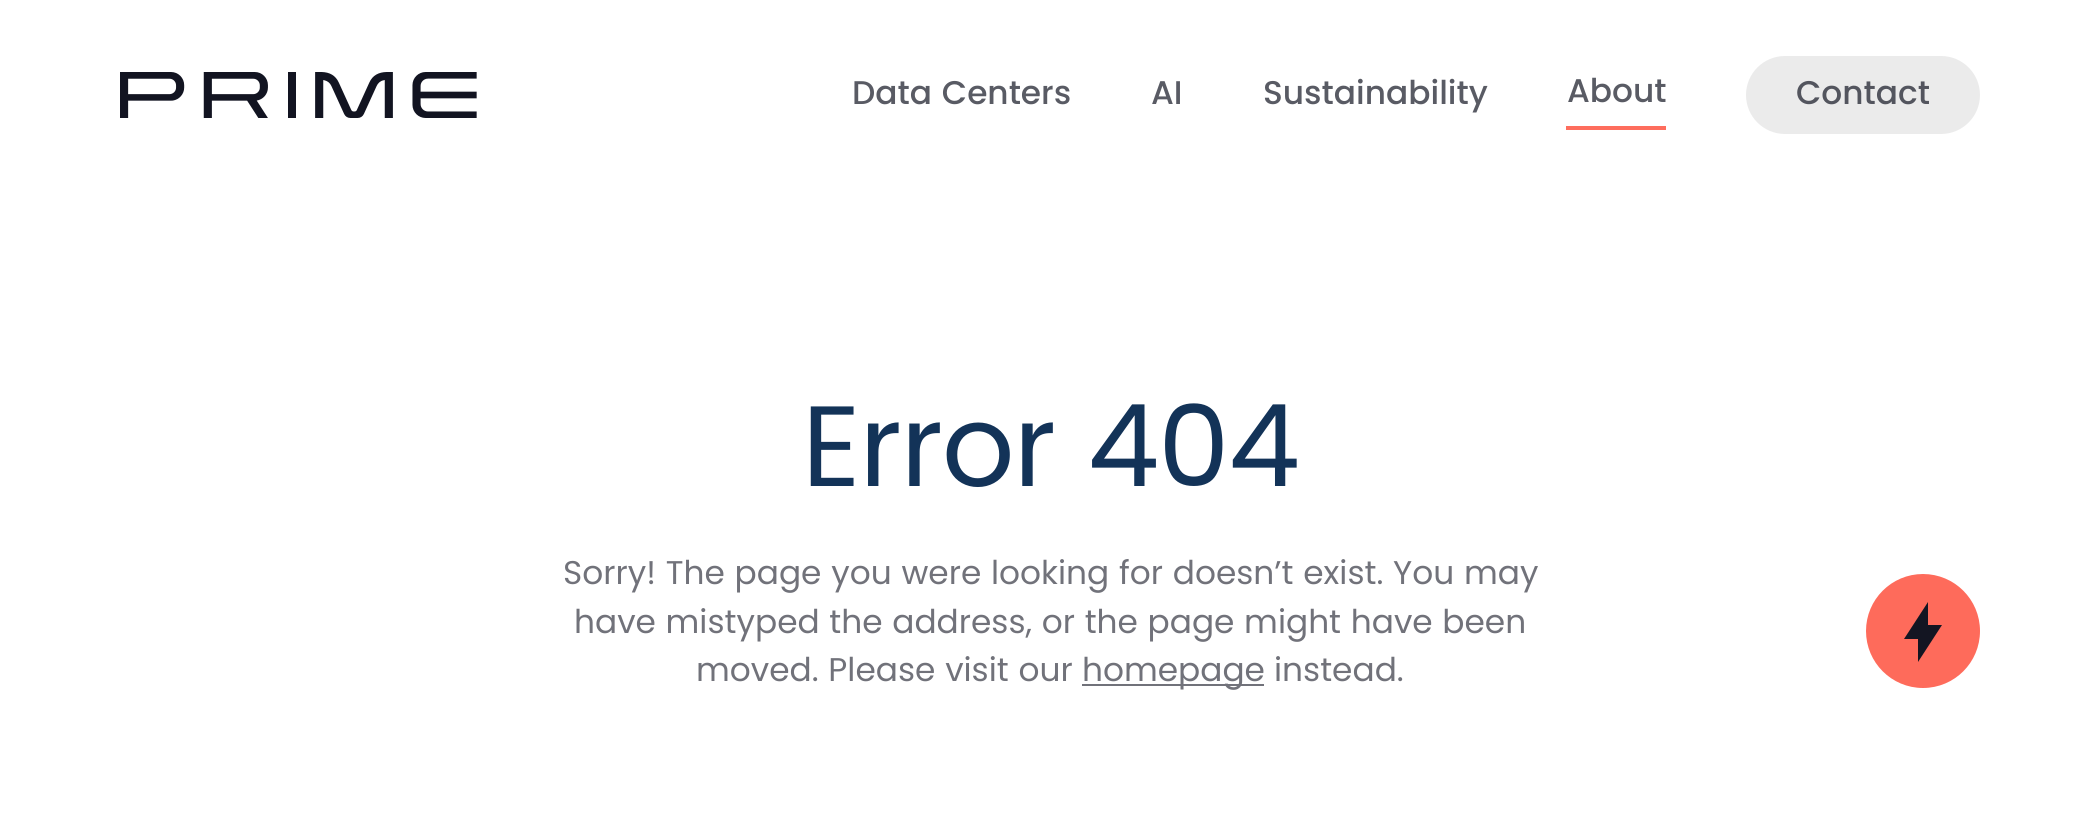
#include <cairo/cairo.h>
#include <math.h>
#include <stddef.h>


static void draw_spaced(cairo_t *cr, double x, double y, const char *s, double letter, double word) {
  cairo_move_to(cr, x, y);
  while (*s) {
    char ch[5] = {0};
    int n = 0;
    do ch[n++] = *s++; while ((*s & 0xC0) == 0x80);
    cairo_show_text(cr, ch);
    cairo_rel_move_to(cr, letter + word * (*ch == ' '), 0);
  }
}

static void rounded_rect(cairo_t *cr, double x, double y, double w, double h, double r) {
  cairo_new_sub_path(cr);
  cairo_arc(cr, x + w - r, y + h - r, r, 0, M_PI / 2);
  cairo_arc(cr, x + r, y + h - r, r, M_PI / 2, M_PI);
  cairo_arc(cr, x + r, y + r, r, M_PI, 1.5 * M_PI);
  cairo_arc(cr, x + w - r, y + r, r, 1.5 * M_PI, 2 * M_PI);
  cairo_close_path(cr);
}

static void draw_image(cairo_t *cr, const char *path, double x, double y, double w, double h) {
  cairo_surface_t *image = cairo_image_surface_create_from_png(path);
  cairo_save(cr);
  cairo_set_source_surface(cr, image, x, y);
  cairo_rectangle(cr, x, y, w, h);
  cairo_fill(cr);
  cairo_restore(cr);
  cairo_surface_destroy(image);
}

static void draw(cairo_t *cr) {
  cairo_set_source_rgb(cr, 1, 1, 1);
  cairo_paint(cr);
  draw_image(cr, "images/1.png", 120, 72, 357, 46);
  cairo_set_source_rgb(cr, 254 / 255.0, 109 / 255.0, 93 / 255.0);
  cairo_rectangle(cr, 1566, 126, 100, 4);
  cairo_fill(cr);
  cairo_set_source_rgb(cr, 235 / 255.0, 235 / 255.0, 235 / 255.0);
  rounded_rect(cr, 1746, 56, 234, 78, 39);
  cairo_fill(cr);
  cairo_set_source_rgb(cr, 113 / 255.0, 114 / 255.0, 122 / 255.0);
  cairo_rectangle(cr, 1082, 684, 182, 2);
  cairo_fill(cr);
  cairo_set_source_rgb(cr, 254 / 255.0, 107 / 255.0, 91 / 255.0);
  cairo_arc(cr, 1923, 631, 57, 0, 2 * M_PI);
  cairo_fill(cr);
  cairo_set_source_rgb(cr, 19 / 255.0, 21 / 255.0, 34 / 255.0);
  cairo_new_path(cr);
  cairo_move_to(cr, 1942, 625);
  cairo_line_to(cr, 1928, 625);
  cairo_line_to(cr, 1928, 602);
  cairo_line_to(cr, 1904, 639);
  cairo_line_to(cr, 1918, 639);
  cairo_line_to(cr, 1918, 662);
  cairo_close_path(cr);
  cairo_fill(cr);
  cairo_select_font_face(cr, "Poppins Medium", CAIRO_FONT_SLANT_NORMAL, CAIRO_FONT_WEIGHT_NORMAL);
  cairo_set_font_size(cr, 32.8);
  cairo_set_source_rgb(cr, 89 / 255.0, 91 / 255.0, 100 / 255.0);
  cairo_move_to(cr, 852, 104);
  cairo_show_text(cr, "Data Centers");
  cairo_move_to(cr, 1151, 104);
  cairo_show_text(cr, "AI");
  cairo_move_to(cr, 1263, 104);
  cairo_show_text(cr, "Sustainability");
  cairo_move_to(cr, 1567, 102);
  cairo_show_text(cr, "About");
  cairo_set_source_rgb(cr, 83 / 255.0, 85 / 255.0, 94 / 255.0);
  cairo_move_to(cr, 1796, 104);
  cairo_show_text(cr, "Contact");
  cairo_select_font_face(cr, "Poppins", CAIRO_FONT_SLANT_NORMAL, CAIRO_FONT_WEIGHT_NORMAL);
  cairo_set_font_size(cr, 114);
  cairo_set_source_rgb(cr, 19 / 255.0, 51 / 255.0, 88 / 255.0);
  draw_spaced(cr, 802, 486, "Error 404", -1.25, 0);
  cairo_set_font_size(cr, 32.8);
  cairo_set_source_rgb(cr, 113 / 255.0, 114 / 255.0, 122 / 255.0);
  cairo_move_to(cr, 563, 584);
  cairo_show_text(cr, "Sorry! The page you were looking for doesn’t exist. You may");
  draw_spaced(cr, 574, 633, "have mistyped the address, or the page might have been", 0, -0.1);
  cairo_move_to(cr, 696, 681);
  cairo_show_text(cr, "moved. Please visit our");
  cairo_move_to(cr, 1082, 681);
  cairo_show_text(cr, "homepage");
  cairo_move_to(cr, 1274, 681);
  cairo_show_text(cr, "instead.");
}

int main(void) {
  cairo_surface_t *surface = cairo_image_surface_create(CAIRO_FORMAT_RGB24, 2100, 819);
  cairo_t *cr = cairo_create(surface);
  cairo_font_options_t *options = cairo_font_options_create();
  cairo_font_options_set_hint_metrics(options, CAIRO_HINT_METRICS_OFF);
  cairo_font_options_set_hint_style(options, CAIRO_HINT_STYLE_NONE);
  cairo_set_font_options(cr, options);
  cairo_set_miter_limit(cr, 4);
  draw(cr);
  cairo_surface_write_to_png(surface, "out.png");
  cairo_font_options_destroy(options);
  cairo_destroy(cr);
  cairo_surface_destroy(surface);
  return 0;
}
